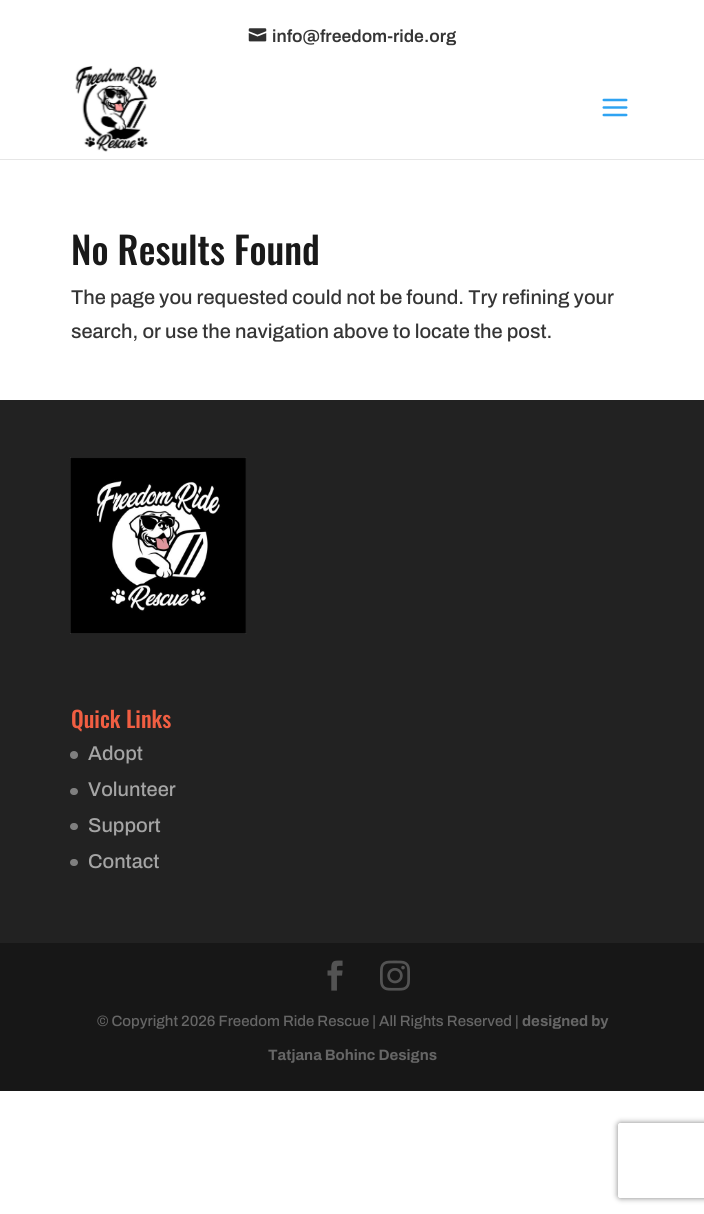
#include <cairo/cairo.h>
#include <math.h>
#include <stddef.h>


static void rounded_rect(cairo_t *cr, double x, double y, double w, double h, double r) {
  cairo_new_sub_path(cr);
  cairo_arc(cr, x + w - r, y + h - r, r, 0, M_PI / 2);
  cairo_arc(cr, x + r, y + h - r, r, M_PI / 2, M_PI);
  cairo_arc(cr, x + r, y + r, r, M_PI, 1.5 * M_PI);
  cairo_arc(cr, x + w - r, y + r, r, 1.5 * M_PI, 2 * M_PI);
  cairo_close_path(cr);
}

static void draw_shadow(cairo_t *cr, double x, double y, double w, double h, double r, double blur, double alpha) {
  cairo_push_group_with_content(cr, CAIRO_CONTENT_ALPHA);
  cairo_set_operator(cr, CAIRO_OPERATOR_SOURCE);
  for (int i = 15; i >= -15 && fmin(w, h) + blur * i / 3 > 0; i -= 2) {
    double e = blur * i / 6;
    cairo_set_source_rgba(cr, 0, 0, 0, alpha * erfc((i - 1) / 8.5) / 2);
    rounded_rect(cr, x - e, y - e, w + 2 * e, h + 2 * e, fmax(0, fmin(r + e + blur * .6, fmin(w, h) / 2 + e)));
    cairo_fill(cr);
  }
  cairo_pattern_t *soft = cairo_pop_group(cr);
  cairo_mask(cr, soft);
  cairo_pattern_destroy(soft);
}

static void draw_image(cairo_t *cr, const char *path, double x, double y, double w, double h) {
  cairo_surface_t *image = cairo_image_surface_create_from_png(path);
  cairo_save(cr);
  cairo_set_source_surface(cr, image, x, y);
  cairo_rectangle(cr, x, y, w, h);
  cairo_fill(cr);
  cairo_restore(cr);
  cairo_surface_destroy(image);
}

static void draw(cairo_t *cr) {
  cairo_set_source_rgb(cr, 1, 1, 1);
  cairo_paint(cr);
  draw_image(cr, "images/1.png", 248, 28, 19, 14);
  cairo_set_source_rgb(cr, 230 / 255.0, 230 / 255.0, 230 / 255.0);
  cairo_rectangle(cr, 0, 159, 704, 1);
  cairo_fill(cr);
  draw_image(cr, "images/2.png", 75, 66, 82, 86);
  draw_image(cr, "images/3.png", 602, 98, 26, 19);
  cairo_set_source_rgb(cr, 34 / 255.0, 34 / 255.0, 34 / 255.0);
  cairo_rectangle(cr, 0, 400, 704, 543);
  cairo_fill(cr);
  draw_image(cr, "images/4.png", 70, 457, 177, 177);
  cairo_set_source_rgb(cr, 127 / 255.0, 127 / 255.0, 127 / 255.0);
  cairo_arc(cr, 74, 755, 4, 0, 2 * M_PI);
  cairo_fill(cr);
  rounded_rect(cr, 70, 788, 8, 7, 3.5);
  cairo_fill(cr);
  rounded_rect(cr, 70, 823, 8, 7, 3.5);
  cairo_fill(cr);
  rounded_rect(cr, 70, 859, 8, 7, 3.5);
  cairo_fill(cr);
  cairo_set_source_rgb(cr, 23 / 255.0, 23 / 255.0, 23 / 255.0);
  cairo_rectangle(cr, 0, 943, 704, 148);
  cairo_fill(cr);
  draw_image(cr, "images/5.png", 327, 960, 16, 31);
  draw_image(cr, "images/6.png", 380, 960, 30, 31);
  cairo_save(cr);
  cairo_set_fill_rule(cr, CAIRO_FILL_RULE_EVEN_ODD);
  cairo_new_path(cr);
  cairo_move_to(cr, 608, 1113);
  cairo_line_to(cr, 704, 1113);
  cairo_line_to(cr, 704, 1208);
  cairo_line_to(cr, 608, 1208);
  cairo_close_path(cr);
  cairo_move_to(cr, 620.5, 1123);
  cairo_line_to(cr, 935.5, 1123);
  cairo_curve_to(cr, 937, 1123, 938, 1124, 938, 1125.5);
  cairo_line_to(cr, 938, 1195.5);
  cairo_curve_to(cr, 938, 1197, 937, 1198, 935.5, 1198);
  cairo_line_to(cr, 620.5, 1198);
  cairo_curve_to(cr, 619, 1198, 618, 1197, 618, 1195.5);
  cairo_line_to(cr, 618, 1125.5);
  cairo_curve_to(cr, 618, 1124, 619, 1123, 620.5, 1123);
  cairo_close_path(cr);
  cairo_clip(cr);
  cairo_set_source_rgb(cr, 128 / 255.0, 128 / 255.0, 128 / 255.0);
  draw_shadow(cr, 618, 1123, 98, 75, 2.5, 3, 1);
  cairo_restore(cr);
  cairo_select_font_face(cr, "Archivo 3 SemiBold", CAIRO_FONT_SLANT_NORMAL, CAIRO_FONT_WEIGHT_NORMAL);
  cairo_set_font_size(cr, 17.5);
  cairo_set_source_rgb(cr, 53 / 255.0, 53 / 255.0, 53 / 255.0);
  cairo_move_to(cr, 272, 42);
  cairo_show_text(cr, "info@freedom-ride.org");
  cairo_select_font_face(cr, "Oswald Medium", CAIRO_FONT_SLANT_NORMAL, CAIRO_FONT_WEIGHT_NORMAL);
  cairo_set_font_size(cr, 37.5);
  cairo_set_source_rgb(cr, 25 / 255.0, 25 / 255.0, 25 / 255.0);
  cairo_move_to(cr, 71, 265);
  cairo_show_text(cr, "No Results Found");
  cairo_select_font_face(cr, "Archivo SemiBold", CAIRO_FONT_SLANT_NORMAL, CAIRO_FONT_WEIGHT_NORMAL);
  cairo_set_font_size(cr, 20);
  cairo_set_source_rgb(cr, 53 / 255.0, 53 / 255.0, 53 / 255.0);
  cairo_move_to(cr, 71, 304);
  cairo_show_text(cr, "The page you requested could not be found. Try refining your");
  cairo_move_to(cr, 71, 338);
  cairo_show_text(cr, "search, or use the navigation above to locate the post.");
  cairo_select_font_face(cr, "Oswald Medium", CAIRO_FONT_SLANT_NORMAL, CAIRO_FONT_WEIGHT_NORMAL);
  cairo_set_font_size(cr, 22.5);
  cairo_set_source_rgb(cr, 241 / 255.0, 94 / 255.0, 66 / 255.0);
  cairo_move_to(cr, 71, 728);
  cairo_show_text(cr, "Quick Links");
  cairo_select_font_face(cr, "Archivo SemiBold", CAIRO_FONT_SLANT_NORMAL, CAIRO_FONT_WEIGHT_NORMAL);
  cairo_set_font_size(cr, 20);
  cairo_set_source_rgb(cr, 165 / 255.0, 165 / 255.0, 165 / 255.0);
  cairo_move_to(cr, 88, 760);
  cairo_show_text(cr, "Adopt");
  cairo_move_to(cr, 88, 796);
  cairo_show_text(cr, "Volunteer");
  cairo_move_to(cr, 88, 832);
  cairo_show_text(cr, "Support");
  cairo_move_to(cr, 88, 868);
  cairo_show_text(cr, "Contact");
  cairo_set_font_size(cr, 15);
  cairo_set_source_rgb(cr, 102 / 255.0, 102 / 255.0, 102 / 255.0);
  cairo_move_to(cr, 97, 1026);
  cairo_show_text(cr, "© Copyright 2026 Freedom Ride Rescue | All Rights Reserved |");
  cairo_select_font_face(cr, "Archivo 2 SemiBold", CAIRO_FONT_SLANT_NORMAL, CAIRO_FONT_WEIGHT_NORMAL);
  cairo_move_to(cr, 522, 1026);
  cairo_show_text(cr, "designed by");
  cairo_move_to(cr, 268, 1060);
  cairo_show_text(cr, "Tatjana Bohinc Designs");
}

int main(void) {
  cairo_surface_t *surface = cairo_image_surface_create(CAIRO_FORMAT_RGB24, 704, 1214);
  cairo_t *cr = cairo_create(surface);
  cairo_font_options_t *options = cairo_font_options_create();
  cairo_font_options_set_hint_metrics(options, CAIRO_HINT_METRICS_OFF);
  cairo_font_options_set_hint_style(options, CAIRO_HINT_STYLE_NONE);
  cairo_set_font_options(cr, options);
  cairo_set_miter_limit(cr, 4);
  draw(cr);
  cairo_surface_write_to_png(surface, "out.png");
  cairo_font_options_destroy(options);
  cairo_destroy(cr);
  cairo_surface_destroy(surface);
  return 0;
}
